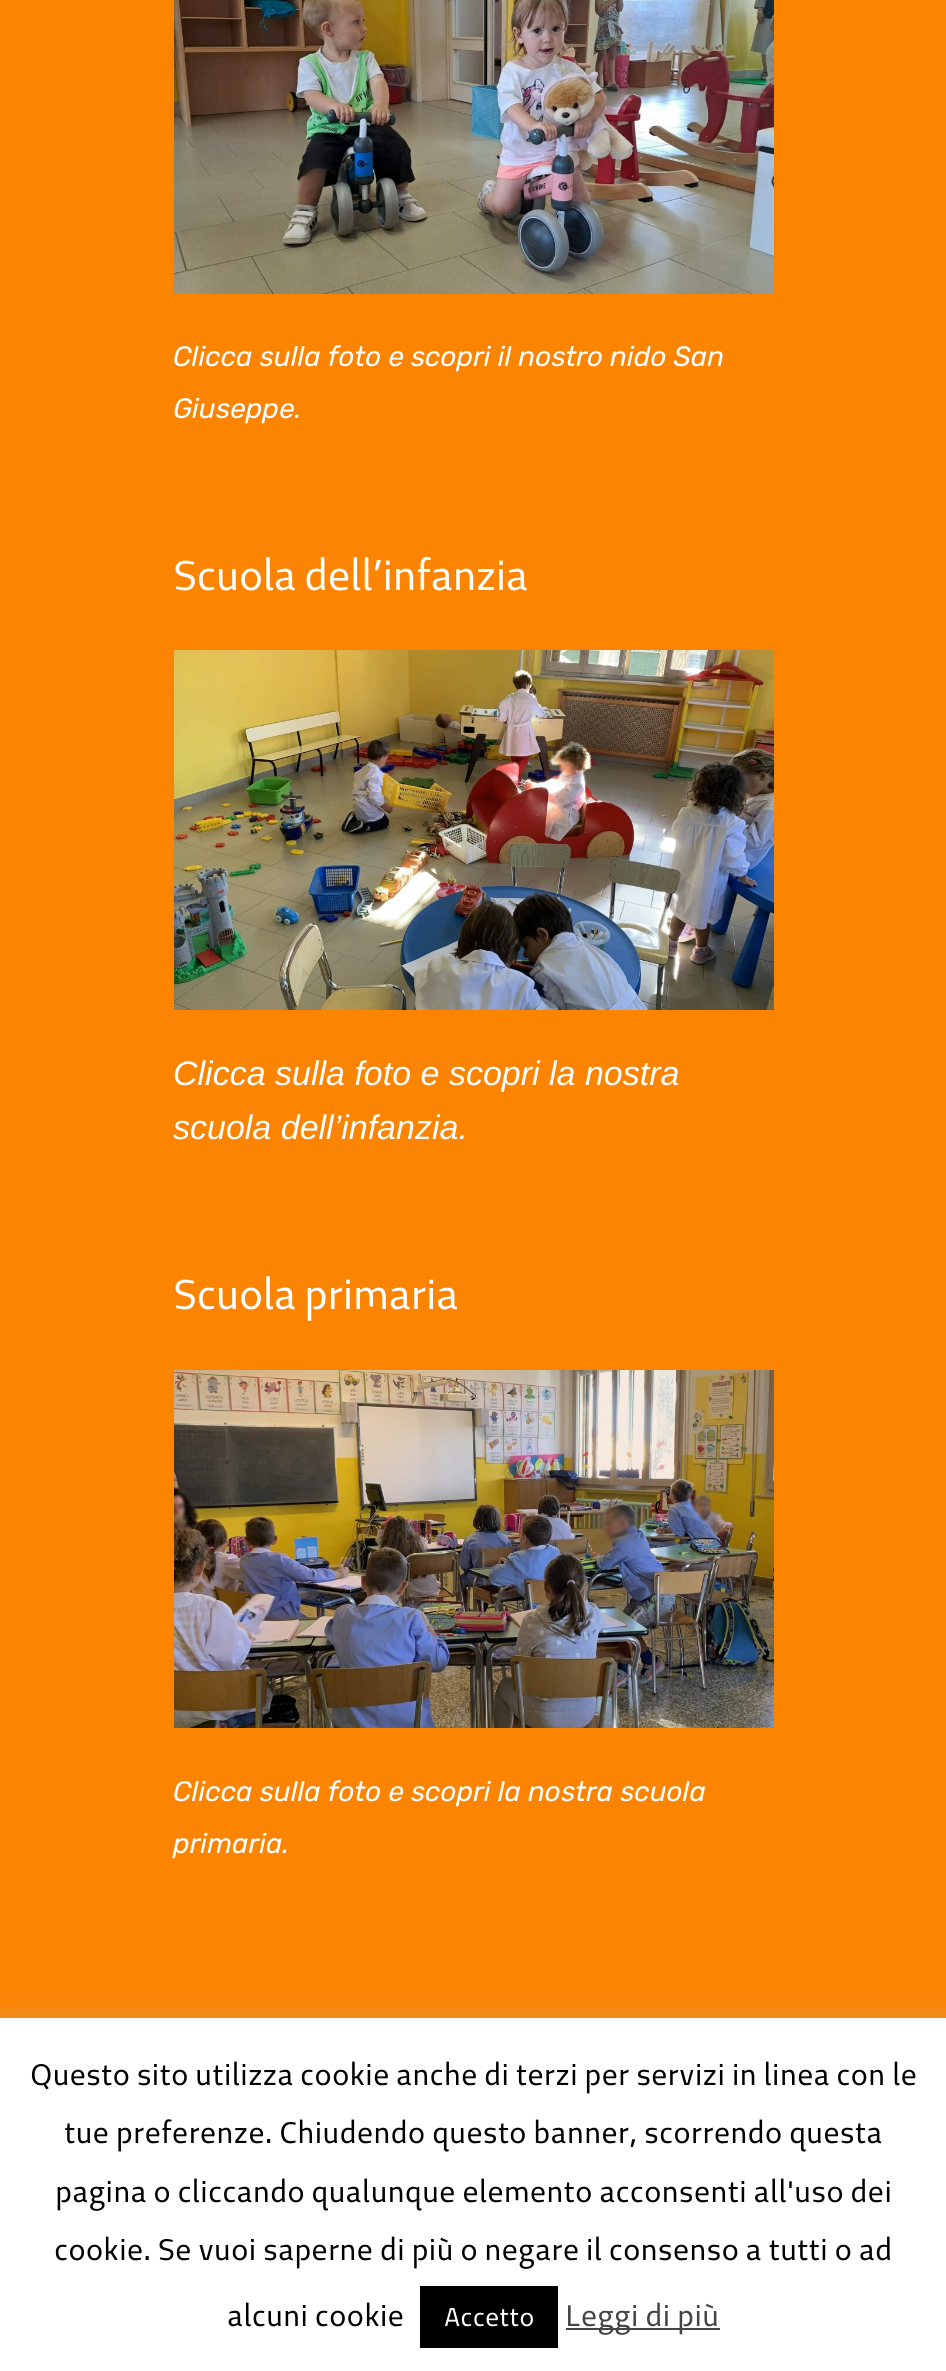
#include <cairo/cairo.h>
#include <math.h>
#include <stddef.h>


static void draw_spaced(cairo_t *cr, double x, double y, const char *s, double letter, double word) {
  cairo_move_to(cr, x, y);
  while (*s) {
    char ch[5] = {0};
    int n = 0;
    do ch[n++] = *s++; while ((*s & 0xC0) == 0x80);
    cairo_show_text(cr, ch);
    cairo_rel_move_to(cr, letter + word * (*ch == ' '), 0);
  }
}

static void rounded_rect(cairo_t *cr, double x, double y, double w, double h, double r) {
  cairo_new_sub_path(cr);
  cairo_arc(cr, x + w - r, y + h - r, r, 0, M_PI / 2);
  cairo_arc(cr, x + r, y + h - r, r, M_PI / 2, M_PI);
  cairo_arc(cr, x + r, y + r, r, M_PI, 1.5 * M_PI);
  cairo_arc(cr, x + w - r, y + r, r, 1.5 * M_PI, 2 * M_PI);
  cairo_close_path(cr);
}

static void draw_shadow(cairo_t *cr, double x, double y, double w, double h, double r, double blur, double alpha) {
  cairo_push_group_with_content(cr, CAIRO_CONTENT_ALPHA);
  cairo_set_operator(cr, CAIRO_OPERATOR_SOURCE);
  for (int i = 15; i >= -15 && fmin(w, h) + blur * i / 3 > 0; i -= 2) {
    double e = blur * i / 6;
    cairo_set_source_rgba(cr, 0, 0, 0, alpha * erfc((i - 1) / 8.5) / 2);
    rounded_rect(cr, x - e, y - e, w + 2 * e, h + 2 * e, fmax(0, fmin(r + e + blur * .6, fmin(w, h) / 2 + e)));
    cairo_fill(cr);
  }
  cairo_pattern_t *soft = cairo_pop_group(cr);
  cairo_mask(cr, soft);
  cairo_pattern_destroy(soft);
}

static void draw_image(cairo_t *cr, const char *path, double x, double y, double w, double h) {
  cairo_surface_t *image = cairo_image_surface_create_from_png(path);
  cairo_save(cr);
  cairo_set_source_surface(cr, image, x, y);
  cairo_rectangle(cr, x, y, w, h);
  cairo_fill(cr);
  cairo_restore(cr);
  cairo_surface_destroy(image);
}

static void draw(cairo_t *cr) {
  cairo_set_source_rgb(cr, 252 / 255.0, 132 / 255.0, 3 / 255.0);
  cairo_paint(cr);
  draw_image(cr, "images/1.png", 174, 0, 600, 294);
  draw_image(cr, "images/2.png", 174, 650, 600, 360);
  draw_image(cr, "images/3.png", 174, 1370, 600, 358);
  cairo_set_source_rgb(cr, 172 / 255.0, 171 / 255.0, 171 / 255.0);
  draw_shadow(cr, 0, 2016, 946, 354, 0, 10, 0.3);
  cairo_set_source_rgb(cr, 1, 1, 1);
  cairo_rectangle(cr, 0, 2018, 946, 353);
  cairo_fill(cr);
  cairo_set_source_rgb(cr, 0, 0, 0);
  cairo_rectangle(cr, 420, 2286, 138, 62);
  cairo_fill(cr);
  cairo_set_source_rgb(cr, 68 / 255.0, 68 / 255.0, 68 / 255.0);
  cairo_rectangle(cr, 566, 2328, 154, 2);
  cairo_fill(cr);
  cairo_select_font_face(cr, "Rubik", CAIRO_FONT_SLANT_ITALIC, CAIRO_FONT_WEIGHT_NORMAL);
  cairo_set_font_size(cr, 28);
  cairo_set_source_rgb(cr, 1, 1, 1);
  cairo_move_to(cr, 173, 366);
  cairo_show_text(cr, "Clicca sulla foto e scopri il nostro nido San");
  cairo_move_to(cr, 173, 418);
  cairo_show_text(cr, "Giuseppe.");
  cairo_select_font_face(cr, "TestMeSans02", CAIRO_FONT_SLANT_NORMAL, CAIRO_FONT_WEIGHT_NORMAL);
  cairo_set_font_size(cr, 42);
  draw_spaced(cr, 173, 590, "Scuola dell’infanzia", -0.8, 0);
  cairo_select_font_face(cr, "Liberation Sans", CAIRO_FONT_SLANT_ITALIC, CAIRO_FONT_WEIGHT_NORMAL);
  cairo_set_font_size(cr, 34);
  cairo_move_to(cr, 173, 1085);
  cairo_show_text(cr, "Clicca sulla foto e scopri la nostra");
  cairo_move_to(cr, 173, 1139);
  cairo_show_text(cr, "scuola dell’infanzia.");
  cairo_select_font_face(cr, "TestMeSans02", CAIRO_FONT_SLANT_NORMAL, CAIRO_FONT_WEIGHT_NORMAL);
  cairo_set_font_size(cr, 42);
  draw_spaced(cr, 173, 1309, "Scuola primaria", -0.8, 0);
  cairo_select_font_face(cr, "Rubik", CAIRO_FONT_SLANT_ITALIC, CAIRO_FONT_WEIGHT_NORMAL);
  cairo_set_font_size(cr, 28);
  cairo_move_to(cr, 173, 1801);
  cairo_show_text(cr, "Clicca sulla foto e scopri la nostra scuola");
  cairo_move_to(cr, 173, 1853);
  cairo_show_text(cr, "primaria.");
  cairo_select_font_face(cr, "TestMeSans02", CAIRO_FONT_SLANT_NORMAL, CAIRO_FONT_WEIGHT_NORMAL);
  cairo_set_font_size(cr, 30);
  cairo_set_source_rgb(cr, 0, 0, 0);
  cairo_move_to(cr, 30, 2085);
  cairo_show_text(cr, "Questo sito utilizza cookie anche di terzi per servizi in linea con le");
  cairo_move_to(cr, 64, 2143);
  cairo_show_text(cr, "tue preferenze. Chiudendo questo banner, scorrendo questa");
  cairo_move_to(cr, 55, 2202);
  cairo_show_text(cr, "pagina o cliccando qualunque elemento acconsenti all'uso dei");
  cairo_move_to(cr, 54, 2260);
  cairo_show_text(cr, "cookie. Se vuoi saperne di più o negare il consenso a tutti o ad");
  cairo_move_to(cr, 227, 2326);
  cairo_show_text(cr, "alcuni cookie");
  cairo_set_font_size(cr, 26);
  cairo_set_source_rgb(cr, 1, 1, 1);
  cairo_move_to(cr, 444, 2326);
  cairo_show_text(cr, "Accetto");
  cairo_set_font_size(cr, 30);
  cairo_set_source_rgb(cr, 68 / 255.0, 68 / 255.0, 68 / 255.0);
  cairo_move_to(cr, 565, 2326);
  cairo_show_text(cr, "Leggi di più");
}

int main(void) {
  cairo_surface_t *surface = cairo_image_surface_create(CAIRO_FORMAT_RGB24, 946, 2371);
  cairo_t *cr = cairo_create(surface);
  cairo_font_options_t *options = cairo_font_options_create();
  cairo_font_options_set_hint_metrics(options, CAIRO_HINT_METRICS_OFF);
  cairo_font_options_set_hint_style(options, CAIRO_HINT_STYLE_NONE);
  cairo_set_font_options(cr, options);
  cairo_set_miter_limit(cr, 4);
  draw(cr);
  cairo_surface_write_to_png(surface, "out.png");
  cairo_font_options_destroy(options);
  cairo_destroy(cr);
  cairo_surface_destroy(surface);
  return 0;
}
